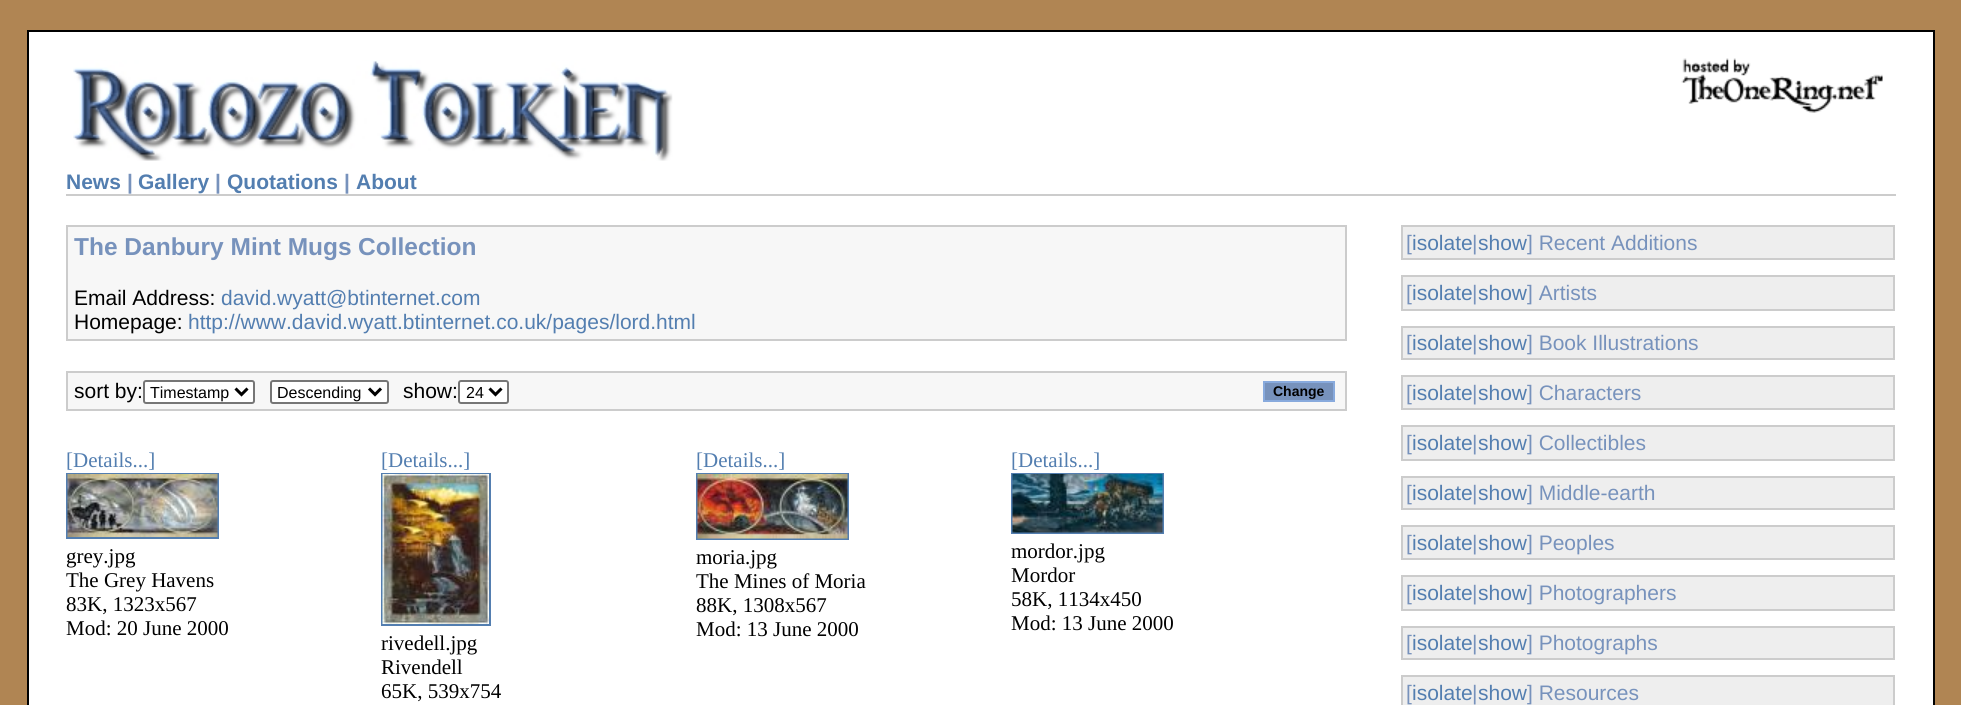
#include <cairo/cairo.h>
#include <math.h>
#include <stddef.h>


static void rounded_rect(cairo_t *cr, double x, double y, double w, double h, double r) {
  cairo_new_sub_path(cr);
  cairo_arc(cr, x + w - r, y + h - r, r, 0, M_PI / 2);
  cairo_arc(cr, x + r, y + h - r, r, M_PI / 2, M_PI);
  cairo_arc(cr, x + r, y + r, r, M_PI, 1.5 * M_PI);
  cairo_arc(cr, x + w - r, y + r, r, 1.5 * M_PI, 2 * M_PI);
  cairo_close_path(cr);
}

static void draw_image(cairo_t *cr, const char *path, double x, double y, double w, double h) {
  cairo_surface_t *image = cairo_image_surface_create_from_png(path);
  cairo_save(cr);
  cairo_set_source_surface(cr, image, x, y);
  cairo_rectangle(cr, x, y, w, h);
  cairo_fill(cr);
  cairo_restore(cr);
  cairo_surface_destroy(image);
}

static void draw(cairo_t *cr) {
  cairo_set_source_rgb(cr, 176 / 255.0, 133 / 255.0, 83 / 255.0);
  cairo_paint(cr);
  cairo_set_source_rgb(cr, 1, 1, 1);
  cairo_rectangle(cr, 28, 31, 1906, 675);
  cairo_fill_preserve(cr);
  cairo_set_source_rgb(cr, 0, 0, 0);
  cairo_stroke(cr);
  draw_image(cr, "images/1.png", 73, 60, 600, 101);
  draw_image(cr, "images/2.png", 1681, 58, 202, 55);
  cairo_set_source_rgb(cr, 204 / 255.0, 204 / 255.0, 204 / 255.0);
  cairo_rectangle(cr, 66, 194, 1830, 2);
  cairo_fill(cr);
  cairo_set_source_rgb(cr, 247 / 255.0, 247 / 255.0, 247 / 255.0);
  cairo_rectangle(cr, 67, 226, 1279, 114);
  cairo_fill_preserve(cr);
  cairo_set_source_rgb(cr, 204 / 255.0, 204 / 255.0, 204 / 255.0);
  cairo_stroke(cr);
  cairo_set_source_rgb(cr, 247 / 255.0, 247 / 255.0, 247 / 255.0);
  cairo_rectangle(cr, 67, 372, 1279, 38);
  cairo_fill_preserve(cr);
  cairo_set_source_rgb(cr, 204 / 255.0, 204 / 255.0, 204 / 255.0);
  cairo_stroke(cr);
  cairo_set_source_rgb(cr, 1, 1, 1);
  rounded_rect(cr, 144, 381, 110, 22, 2);
  cairo_fill_preserve(cr);
  cairo_set_source_rgb(cr, 118 / 255.0, 118 / 255.0, 118 / 255.0);
  cairo_stroke(cr);
  cairo_new_path(cr);
  cairo_move_to(cr, 235.5, 388.5);
  cairo_line_to(cr, 241.5, 394.5);
  cairo_line_to(cr, 247.5, 388.5);
  cairo_set_source_rgb(cr, 0, 0, 0);
  cairo_set_line_width(cr, 3);
  cairo_stroke(cr);
  cairo_set_source_rgb(cr, 1, 1, 1);
  rounded_rect(cr, 271, 381, 117, 22, 2);
  cairo_fill_preserve(cr);
  cairo_set_source_rgb(cr, 118 / 255.0, 118 / 255.0, 118 / 255.0);
  cairo_set_line_width(cr, 2);
  cairo_stroke(cr);
  cairo_new_path(cr);
  cairo_move_to(cr, 369, 388.5);
  cairo_line_to(cr, 375, 394.5);
  cairo_line_to(cr, 381, 388.5);
  cairo_set_source_rgb(cr, 0, 0, 0);
  cairo_set_line_width(cr, 3);
  cairo_stroke(cr);
  cairo_set_source_rgb(cr, 1, 1, 1);
  rounded_rect(cr, 459, 381, 49, 22, 2);
  cairo_fill_preserve(cr);
  cairo_set_source_rgb(cr, 118 / 255.0, 118 / 255.0, 118 / 255.0);
  cairo_set_line_width(cr, 2);
  cairo_stroke(cr);
  cairo_new_path(cr);
  cairo_move_to(cr, 489.5, 388.5);
  cairo_line_to(cr, 495.5, 394.5);
  cairo_line_to(cr, 501.5, 388.5);
  cairo_set_source_rgb(cr, 0, 0, 0);
  cairo_set_line_width(cr, 3);
  cairo_stroke(cr);
  cairo_set_source_rgb(cr, 119 / 255.0, 146 / 255.0, 188 / 255.0);
  cairo_rectangle(cr, 1264, 382, 70, 19);
  cairo_fill_preserve(cr);
  cairo_set_source_rgb(cr, 136 / 255.0, 170 / 255.0, 221 / 255.0);
  cairo_set_line_width(cr, 2);
  cairo_stroke(cr);
  cairo_rectangle(cr, 67, 474, 151, 64);
  cairo_set_source_rgb(cr, 83 / 255.0, 126 / 255.0, 176 / 255.0);
  cairo_stroke(cr);
  draw_image(cr, "images/3.png", 67, 474, 151, 63);
  cairo_rectangle(cr, 382, 474, 108, 151);
  cairo_stroke(cr);
  draw_image(cr, "images/4.png", 382, 474, 107, 150);
  cairo_rectangle(cr, 697, 474, 151, 65);
  cairo_stroke(cr);
  draw_image(cr, "images/5.png", 697, 474, 151, 65);
  cairo_rectangle(cr, 1012, 474, 151, 59);
  cairo_stroke(cr);
  draw_image(cr, "images/6.png", 1012, 474, 151, 59);
  cairo_set_source_rgb(cr, 238 / 255.0, 238 / 255.0, 238 / 255.0);
  cairo_rectangle(cr, 1402, 226, 492, 33);
  cairo_fill_preserve(cr);
  cairo_set_source_rgb(cr, 204 / 255.0, 204 / 255.0, 204 / 255.0);
  cairo_stroke(cr);
  cairo_set_source_rgb(cr, 238 / 255.0, 238 / 255.0, 238 / 255.0);
  cairo_rectangle(cr, 1402, 276, 492, 34);
  cairo_fill_preserve(cr);
  cairo_set_source_rgb(cr, 204 / 255.0, 204 / 255.0, 204 / 255.0);
  cairo_stroke(cr);
  cairo_set_source_rgb(cr, 238 / 255.0, 238 / 255.0, 238 / 255.0);
  cairo_rectangle(cr, 1402, 327, 492, 32);
  cairo_fill_preserve(cr);
  cairo_set_source_rgb(cr, 204 / 255.0, 204 / 255.0, 204 / 255.0);
  cairo_stroke(cr);
  cairo_set_source_rgb(cr, 238 / 255.0, 238 / 255.0, 238 / 255.0);
  cairo_rectangle(cr, 1402, 376, 492, 33);
  cairo_fill_preserve(cr);
  cairo_set_source_rgb(cr, 204 / 255.0, 204 / 255.0, 204 / 255.0);
  cairo_stroke(cr);
  cairo_set_source_rgb(cr, 238 / 255.0, 238 / 255.0, 238 / 255.0);
  cairo_rectangle(cr, 1402, 426, 492, 34);
  cairo_fill_preserve(cr);
  cairo_set_source_rgb(cr, 204 / 255.0, 204 / 255.0, 204 / 255.0);
  cairo_stroke(cr);
  cairo_set_source_rgb(cr, 238 / 255.0, 238 / 255.0, 238 / 255.0);
  cairo_rectangle(cr, 1402, 477, 492, 32);
  cairo_fill_preserve(cr);
  cairo_set_source_rgb(cr, 204 / 255.0, 204 / 255.0, 204 / 255.0);
  cairo_stroke(cr);
  cairo_set_source_rgb(cr, 238 / 255.0, 238 / 255.0, 238 / 255.0);
  cairo_rectangle(cr, 1402, 526, 492, 33);
  cairo_fill_preserve(cr);
  cairo_set_source_rgb(cr, 204 / 255.0, 204 / 255.0, 204 / 255.0);
  cairo_stroke(cr);
  cairo_set_source_rgb(cr, 238 / 255.0, 238 / 255.0, 238 / 255.0);
  cairo_rectangle(cr, 1402, 576, 492, 34);
  cairo_fill_preserve(cr);
  cairo_set_source_rgb(cr, 204 / 255.0, 204 / 255.0, 204 / 255.0);
  cairo_stroke(cr);
  cairo_set_source_rgb(cr, 238 / 255.0, 238 / 255.0, 238 / 255.0);
  cairo_rectangle(cr, 1402, 627, 492, 32);
  cairo_fill_preserve(cr);
  cairo_set_source_rgb(cr, 204 / 255.0, 204 / 255.0, 204 / 255.0);
  cairo_stroke(cr);
  cairo_set_source_rgb(cr, 238 / 255.0, 238 / 255.0, 238 / 255.0);
  cairo_rectangle(cr, 1402, 676, 492, 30);
  cairo_fill_preserve(cr);
  cairo_set_source_rgb(cr, 204 / 255.0, 204 / 255.0, 204 / 255.0);
  cairo_stroke(cr);
  cairo_select_font_face(cr, "Liberation Sans", CAIRO_FONT_SLANT_NORMAL, CAIRO_FONT_WEIGHT_BOLD);
  cairo_set_font_size(cr, 21);
  cairo_set_source_rgb(cr, 83 / 255.0, 126 / 255.0, 176 / 255.0);
  cairo_move_to(cr, 66, 189);
  cairo_show_text(cr, "News");
  cairo_set_source_rgb(cr, 119 / 255.0, 146 / 255.0, 188 / 255.0);
  cairo_move_to(cr, 127, 189);
  cairo_show_text(cr, "|");
  cairo_set_source_rgb(cr, 83 / 255.0, 126 / 255.0, 176 / 255.0);
  cairo_move_to(cr, 138, 189);
  cairo_show_text(cr, "Gallery");
  cairo_set_source_rgb(cr, 119 / 255.0, 146 / 255.0, 188 / 255.0);
  cairo_move_to(cr, 215, 189);
  cairo_show_text(cr, "|");
  cairo_set_source_rgb(cr, 83 / 255.0, 126 / 255.0, 176 / 255.0);
  cairo_move_to(cr, 227, 189);
  cairo_show_text(cr, "Quotations");
  cairo_set_source_rgb(cr, 119 / 255.0, 146 / 255.0, 188 / 255.0);
  cairo_move_to(cr, 344, 189);
  cairo_show_text(cr, "|");
  cairo_set_source_rgb(cr, 83 / 255.0, 126 / 255.0, 176 / 255.0);
  cairo_move_to(cr, 356, 189);
  cairo_show_text(cr, "About");
  cairo_set_font_size(cr, 24.5);
  cairo_set_source_rgb(cr, 119 / 255.0, 146 / 255.0, 188 / 255.0);
  cairo_move_to(cr, 74, 255);
  cairo_show_text(cr, "The Danbury Mint Mugs");
  cairo_move_to(cr, 358, 255);
  cairo_show_text(cr, "Collection");
  cairo_select_font_face(cr, "Liberation Sans", CAIRO_FONT_SLANT_NORMAL, CAIRO_FONT_WEIGHT_NORMAL);
  cairo_set_font_size(cr, 21);
  cairo_set_source_rgb(cr, 0, 0, 0);
  cairo_move_to(cr, 74, 305);
  cairo_show_text(cr, "Email Address:");
  cairo_set_source_rgb(cr, 83 / 255.0, 126 / 255.0, 176 / 255.0);
  cairo_move_to(cr, 221, 305);
  cairo_show_text(cr, "david.wyatt@btinternet.com");
  cairo_set_source_rgb(cr, 0, 0, 0);
  cairo_move_to(cr, 74, 329);
  cairo_show_text(cr, "Homepage:");
  cairo_set_source_rgb(cr, 83 / 255.0, 126 / 255.0, 176 / 255.0);
  cairo_move_to(cr, 188, 329);
  cairo_show_text(cr, "http://www.david.wyatt.btinternet.co.uk/pages/lord.html");
  cairo_set_source_rgb(cr, 0, 0, 0);
  cairo_move_to(cr, 74, 398);
  cairo_show_text(cr, "sort by:");
  cairo_set_font_size(cr, 16);
  cairo_move_to(cr, 150, 398);
  cairo_show_text(cr, "Timestamp");
  cairo_move_to(cr, 277, 398);
  cairo_show_text(cr, "Descending");
  cairo_set_font_size(cr, 21);
  cairo_move_to(cr, 403, 398);
  cairo_show_text(cr, "show:");
  cairo_set_font_size(cr, 16);
  cairo_move_to(cr, 466, 398);
  cairo_show_text(cr, "24");
  cairo_select_font_face(cr, "Liberation Sans", CAIRO_FONT_SLANT_NORMAL, CAIRO_FONT_WEIGHT_BOLD);
  cairo_set_font_size(cr, 14);
  cairo_move_to(cr, 1273, 396);
  cairo_show_text(cr, "Change");
  cairo_select_font_face(cr, "Liberation Serif", CAIRO_FONT_SLANT_NORMAL, CAIRO_FONT_WEIGHT_NORMAL);
  cairo_set_font_size(cr, 21);
  cairo_set_source_rgb(cr, 83 / 255.0, 126 / 255.0, 176 / 255.0);
  cairo_move_to(cr, 66, 467);
  cairo_show_text(cr, "[Details...]");
  cairo_set_source_rgb(cr, 0, 0, 0);
  cairo_move_to(cr, 66, 563);
  cairo_show_text(cr, "grey.jpg");
  cairo_move_to(cr, 66, 587);
  cairo_show_text(cr, "The Grey Havens");
  cairo_move_to(cr, 66, 611);
  cairo_show_text(cr, "83K, 1323x567");
  cairo_move_to(cr, 66, 635);
  cairo_show_text(cr, "Mod: 20 June 2000");
  cairo_set_source_rgb(cr, 83 / 255.0, 126 / 255.0, 176 / 255.0);
  cairo_move_to(cr, 381, 467);
  cairo_show_text(cr, "[Details...]");
  cairo_set_source_rgb(cr, 0, 0, 0);
  cairo_move_to(cr, 381, 650);
  cairo_show_text(cr, "rivedell.jpg");
  cairo_move_to(cr, 381, 674);
  cairo_show_text(cr, "Rivendell");
  cairo_move_to(cr, 381, 698);
  cairo_show_text(cr, "65K, 539x754");
  cairo_set_source_rgb(cr, 83 / 255.0, 126 / 255.0, 176 / 255.0);
  cairo_move_to(cr, 696, 467);
  cairo_show_text(cr, "[Details...]");
  cairo_set_source_rgb(cr, 0, 0, 0);
  cairo_move_to(cr, 696, 564);
  cairo_show_text(cr, "moria.jpg");
  cairo_move_to(cr, 696, 588);
  cairo_show_text(cr, "The Mines of Moria");
  cairo_move_to(cr, 696, 612);
  cairo_show_text(cr, "88K, 1308x567");
  cairo_move_to(cr, 696, 636);
  cairo_show_text(cr, "Mod: 13 June 2000");
  cairo_set_source_rgb(cr, 83 / 255.0, 126 / 255.0, 176 / 255.0);
  cairo_move_to(cr, 1011, 467);
  cairo_show_text(cr, "[Details...]");
  cairo_set_source_rgb(cr, 0, 0, 0);
  cairo_move_to(cr, 1011, 558);
  cairo_show_text(cr, "mordor.jpg");
  cairo_move_to(cr, 1011, 582);
  cairo_show_text(cr, "Mordor");
  cairo_move_to(cr, 1011, 606);
  cairo_show_text(cr, "58K, 1134x450");
  cairo_move_to(cr, 1011, 630);
  cairo_show_text(cr, "Mod: 13 June 2000");
  cairo_select_font_face(cr, "Liberation Sans", CAIRO_FONT_SLANT_NORMAL, CAIRO_FONT_WEIGHT_NORMAL);
  cairo_set_source_rgb(cr, 119 / 255.0, 146 / 255.0, 188 / 255.0);
  cairo_move_to(cr, 1406, 250);
  cairo_show_text(cr, "[");
  cairo_set_source_rgb(cr, 83 / 255.0, 126 / 255.0, 176 / 255.0);
  cairo_move_to(cr, 1412, 250);
  cairo_show_text(cr, "isolate");
  cairo_set_source_rgb(cr, 119 / 255.0, 146 / 255.0, 188 / 255.0);
  cairo_move_to(cr, 1472, 250);
  cairo_show_text(cr, "|");
  cairo_set_source_rgb(cr, 83 / 255.0, 126 / 255.0, 176 / 255.0);
  cairo_move_to(cr, 1478, 250);
  cairo_show_text(cr, "show");
  cairo_set_source_rgb(cr, 119 / 255.0, 146 / 255.0, 188 / 255.0);
  cairo_move_to(cr, 1527, 250);
  cairo_show_text(cr, "] Recent Additions");
  cairo_move_to(cr, 1406, 300);
  cairo_show_text(cr, "[");
  cairo_set_source_rgb(cr, 83 / 255.0, 126 / 255.0, 176 / 255.0);
  cairo_move_to(cr, 1412, 300);
  cairo_show_text(cr, "isolate");
  cairo_set_source_rgb(cr, 119 / 255.0, 146 / 255.0, 188 / 255.0);
  cairo_move_to(cr, 1472, 300);
  cairo_show_text(cr, "|");
  cairo_set_source_rgb(cr, 83 / 255.0, 126 / 255.0, 176 / 255.0);
  cairo_move_to(cr, 1478, 300);
  cairo_show_text(cr, "show");
  cairo_set_source_rgb(cr, 119 / 255.0, 146 / 255.0, 188 / 255.0);
  cairo_move_to(cr, 1527, 300);
  cairo_show_text(cr, "] Artists");
  cairo_move_to(cr, 1406, 350);
  cairo_show_text(cr, "[");
  cairo_set_source_rgb(cr, 83 / 255.0, 126 / 255.0, 176 / 255.0);
  cairo_move_to(cr, 1412, 350);
  cairo_show_text(cr, "isolate");
  cairo_set_source_rgb(cr, 119 / 255.0, 146 / 255.0, 188 / 255.0);
  cairo_move_to(cr, 1472, 350);
  cairo_show_text(cr, "|");
  cairo_set_source_rgb(cr, 83 / 255.0, 126 / 255.0, 176 / 255.0);
  cairo_move_to(cr, 1478, 350);
  cairo_show_text(cr, "show");
  cairo_set_source_rgb(cr, 119 / 255.0, 146 / 255.0, 188 / 255.0);
  cairo_move_to(cr, 1527, 350);
  cairo_show_text(cr, "] Book Illustrations");
  cairo_move_to(cr, 1406, 400);
  cairo_show_text(cr, "[");
  cairo_set_source_rgb(cr, 83 / 255.0, 126 / 255.0, 176 / 255.0);
  cairo_move_to(cr, 1412, 400);
  cairo_show_text(cr, "isolate");
  cairo_set_source_rgb(cr, 119 / 255.0, 146 / 255.0, 188 / 255.0);
  cairo_move_to(cr, 1472, 400);
  cairo_show_text(cr, "|");
  cairo_set_source_rgb(cr, 83 / 255.0, 126 / 255.0, 176 / 255.0);
  cairo_move_to(cr, 1478, 400);
  cairo_show_text(cr, "show");
  cairo_set_source_rgb(cr, 119 / 255.0, 146 / 255.0, 188 / 255.0);
  cairo_move_to(cr, 1527, 400);
  cairo_show_text(cr, "] Characters");
  cairo_move_to(cr, 1406, 450);
  cairo_show_text(cr, "[");
  cairo_set_source_rgb(cr, 83 / 255.0, 126 / 255.0, 176 / 255.0);
  cairo_move_to(cr, 1412, 450);
  cairo_show_text(cr, "isolate");
  cairo_set_source_rgb(cr, 119 / 255.0, 146 / 255.0, 188 / 255.0);
  cairo_move_to(cr, 1472, 450);
  cairo_show_text(cr, "|");
  cairo_set_source_rgb(cr, 83 / 255.0, 126 / 255.0, 176 / 255.0);
  cairo_move_to(cr, 1478, 450);
  cairo_show_text(cr, "show");
  cairo_set_source_rgb(cr, 119 / 255.0, 146 / 255.0, 188 / 255.0);
  cairo_move_to(cr, 1527, 450);
  cairo_show_text(cr, "] Collectibles");
  cairo_move_to(cr, 1406, 500);
  cairo_show_text(cr, "[");
  cairo_set_source_rgb(cr, 83 / 255.0, 126 / 255.0, 176 / 255.0);
  cairo_move_to(cr, 1412, 500);
  cairo_show_text(cr, "isolate");
  cairo_set_source_rgb(cr, 119 / 255.0, 146 / 255.0, 188 / 255.0);
  cairo_move_to(cr, 1472, 500);
  cairo_show_text(cr, "|");
  cairo_set_source_rgb(cr, 83 / 255.0, 126 / 255.0, 176 / 255.0);
  cairo_move_to(cr, 1478, 500);
  cairo_show_text(cr, "show");
  cairo_set_source_rgb(cr, 119 / 255.0, 146 / 255.0, 188 / 255.0);
  cairo_move_to(cr, 1527, 500);
  cairo_show_text(cr, "] Middle-earth");
  cairo_move_to(cr, 1406, 550);
  cairo_show_text(cr, "[");
  cairo_set_source_rgb(cr, 83 / 255.0, 126 / 255.0, 176 / 255.0);
  cairo_move_to(cr, 1412, 550);
  cairo_show_text(cr, "isolate");
  cairo_set_source_rgb(cr, 119 / 255.0, 146 / 255.0, 188 / 255.0);
  cairo_move_to(cr, 1472, 550);
  cairo_show_text(cr, "|");
  cairo_set_source_rgb(cr, 83 / 255.0, 126 / 255.0, 176 / 255.0);
  cairo_move_to(cr, 1478, 550);
  cairo_show_text(cr, "show");
  cairo_set_source_rgb(cr, 119 / 255.0, 146 / 255.0, 188 / 255.0);
  cairo_move_to(cr, 1527, 550);
  cairo_show_text(cr, "] Peoples");
  cairo_move_to(cr, 1406, 600);
  cairo_show_text(cr, "[");
  cairo_set_source_rgb(cr, 83 / 255.0, 126 / 255.0, 176 / 255.0);
  cairo_move_to(cr, 1412, 600);
  cairo_show_text(cr, "isolate");
  cairo_set_source_rgb(cr, 119 / 255.0, 146 / 255.0, 188 / 255.0);
  cairo_move_to(cr, 1472, 600);
  cairo_show_text(cr, "|");
  cairo_set_source_rgb(cr, 83 / 255.0, 126 / 255.0, 176 / 255.0);
  cairo_move_to(cr, 1478, 600);
  cairo_show_text(cr, "show");
  cairo_set_source_rgb(cr, 119 / 255.0, 146 / 255.0, 188 / 255.0);
  cairo_move_to(cr, 1527, 600);
  cairo_show_text(cr, "] Photographers");
  cairo_move_to(cr, 1406, 650);
  cairo_show_text(cr, "[");
  cairo_set_source_rgb(cr, 83 / 255.0, 126 / 255.0, 176 / 255.0);
  cairo_move_to(cr, 1412, 650);
  cairo_show_text(cr, "isolate");
  cairo_set_source_rgb(cr, 119 / 255.0, 146 / 255.0, 188 / 255.0);
  cairo_move_to(cr, 1472, 650);
  cairo_show_text(cr, "|");
  cairo_set_source_rgb(cr, 83 / 255.0, 126 / 255.0, 176 / 255.0);
  cairo_move_to(cr, 1478, 650);
  cairo_show_text(cr, "show");
  cairo_set_source_rgb(cr, 119 / 255.0, 146 / 255.0, 188 / 255.0);
  cairo_move_to(cr, 1527, 650);
  cairo_show_text(cr, "] Photographs");
  cairo_move_to(cr, 1406, 700);
  cairo_show_text(cr, "[");
  cairo_set_source_rgb(cr, 83 / 255.0, 126 / 255.0, 176 / 255.0);
  cairo_move_to(cr, 1412, 700);
  cairo_show_text(cr, "isolate");
  cairo_set_source_rgb(cr, 119 / 255.0, 146 / 255.0, 188 / 255.0);
  cairo_move_to(cr, 1472, 700);
  cairo_show_text(cr, "|");
  cairo_set_source_rgb(cr, 83 / 255.0, 126 / 255.0, 176 / 255.0);
  cairo_move_to(cr, 1478, 700);
  cairo_show_text(cr, "show");
  cairo_set_source_rgb(cr, 119 / 255.0, 146 / 255.0, 188 / 255.0);
  cairo_move_to(cr, 1527, 700);
  cairo_show_text(cr, "] Resources");
}

int main(void) {
  cairo_surface_t *surface = cairo_image_surface_create(CAIRO_FORMAT_RGB24, 1961, 705);
  cairo_t *cr = cairo_create(surface);
  cairo_font_options_t *options = cairo_font_options_create();
  cairo_font_options_set_hint_metrics(options, CAIRO_HINT_METRICS_OFF);
  cairo_font_options_set_hint_style(options, CAIRO_HINT_STYLE_NONE);
  cairo_set_font_options(cr, options);
  cairo_set_miter_limit(cr, 4);
  draw(cr);
  cairo_surface_write_to_png(surface, "out.png");
  cairo_font_options_destroy(options);
  cairo_destroy(cr);
  cairo_surface_destroy(surface);
  return 0;
}
